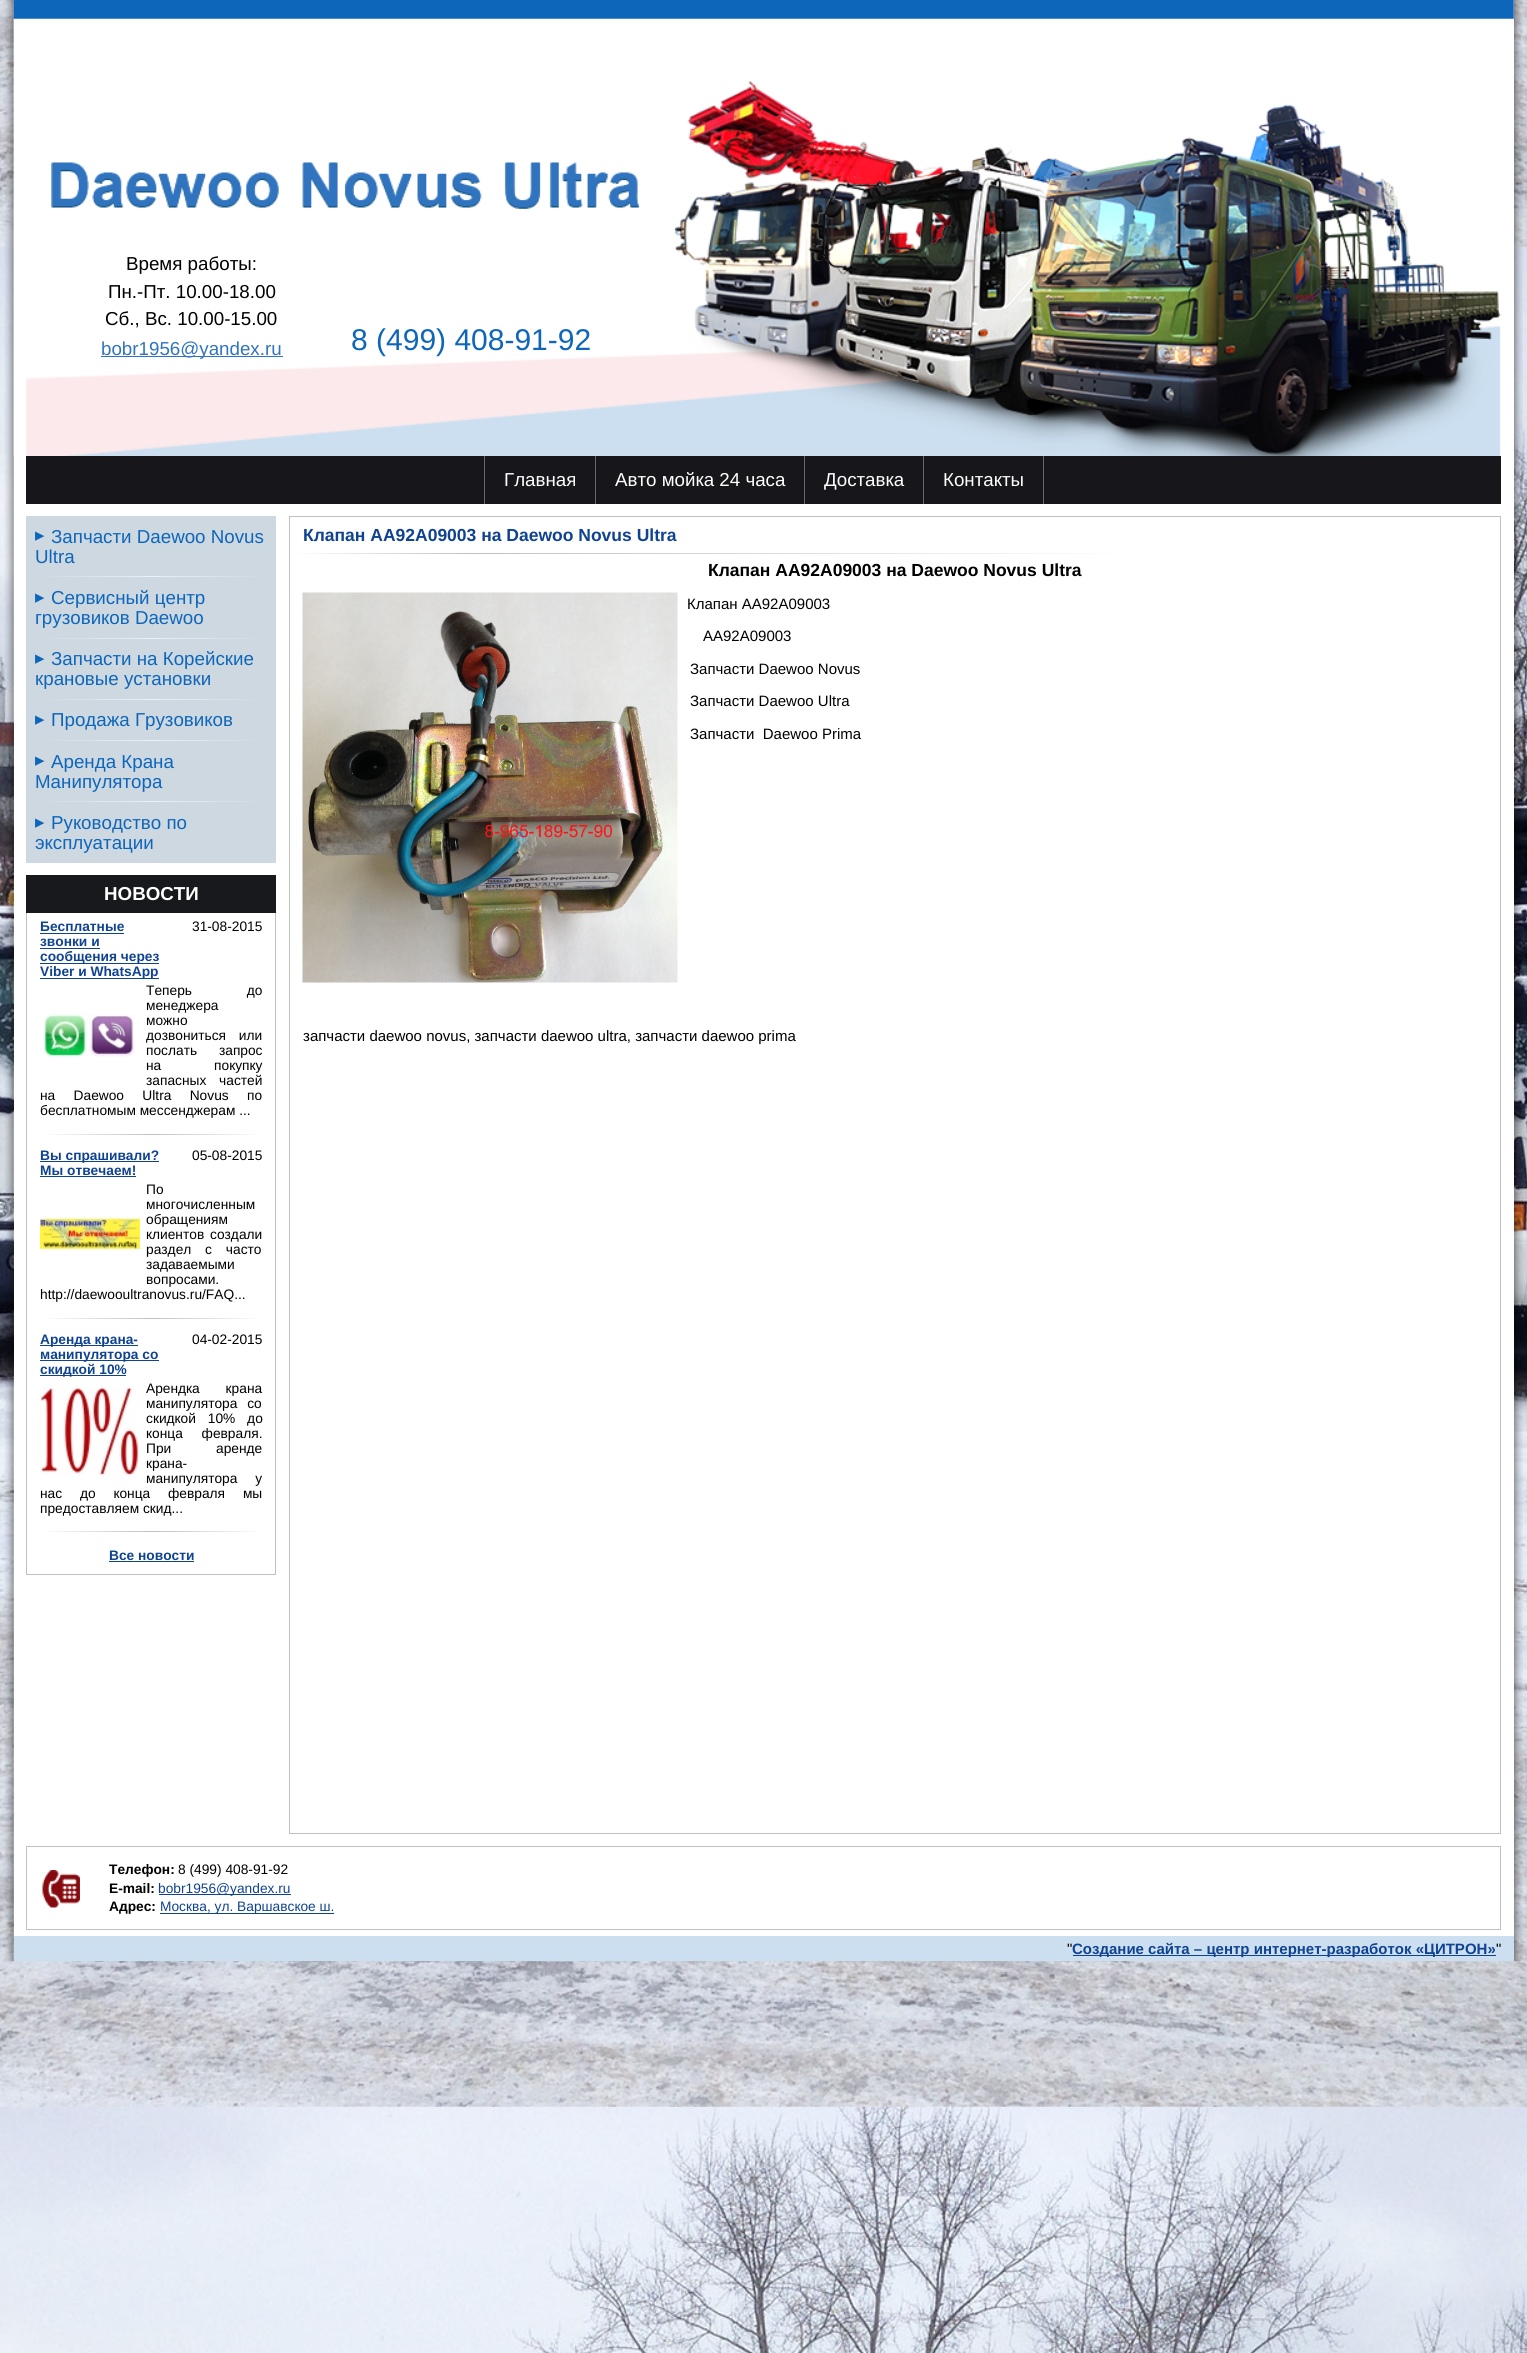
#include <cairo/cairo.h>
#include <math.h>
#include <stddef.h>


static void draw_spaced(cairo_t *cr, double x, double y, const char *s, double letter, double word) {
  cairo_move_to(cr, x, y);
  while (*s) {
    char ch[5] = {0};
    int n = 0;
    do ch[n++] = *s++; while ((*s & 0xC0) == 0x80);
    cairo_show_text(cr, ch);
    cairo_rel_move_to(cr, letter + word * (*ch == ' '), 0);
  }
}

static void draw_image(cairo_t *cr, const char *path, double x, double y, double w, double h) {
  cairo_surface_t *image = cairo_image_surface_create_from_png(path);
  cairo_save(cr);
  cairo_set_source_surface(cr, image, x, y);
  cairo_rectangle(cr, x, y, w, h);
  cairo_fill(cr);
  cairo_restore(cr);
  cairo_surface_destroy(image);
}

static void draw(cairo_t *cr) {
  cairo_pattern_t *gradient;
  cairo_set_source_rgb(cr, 1, 1, 1);
  cairo_paint(cr);
  draw_image(cr, "images/1.png", 0, 0, 1527, 2353);
  draw_image(cr, "images/2.png", 4, 0, 1519, 1962);
  cairo_set_source_rgb(cr, 1, 1, 1);
  cairo_rectangle(cr, 14, 0, 1500, 1936);
  cairo_fill(cr);
  draw_image(cr, "images/3.png", 13, 0, 1501, 457);
  draw_image(cr, "images/4.png", 51, 162, 589, 47);
  cairo_set_source_rgb(cr, 48 / 255.0, 116 / 255.0, 191 / 255.0);
  cairo_rectangle(cr, 101, 356, 182, 1);
  cairo_fill(cr);
  cairo_set_source_rgb(cr, 22 / 255.0, 22 / 255.0, 27 / 255.0);
  cairo_rectangle(cr, 26, 456, 1475, 48);
  cairo_fill(cr);
  cairo_set_source_rgb(cr, 101 / 255.0, 101 / 255.0, 101 / 255.0);
  cairo_rectangle(cr, 484, 456, 1, 48);
  cairo_fill(cr);
  cairo_rectangle(cr, 595, 456, 1, 48);
  cairo_fill(cr);
  cairo_rectangle(cr, 804, 456, 1, 48);
  cairo_fill(cr);
  cairo_rectangle(cr, 923, 456, 1, 48);
  cairo_fill(cr);
  cairo_rectangle(cr, 1043, 456, 1, 48);
  cairo_fill(cr);
  cairo_set_source_rgb(cr, 205 / 255.0, 216 / 255.0, 225 / 255.0);
  cairo_rectangle(cr, 26, 516, 250, 347);
  cairo_fill(cr);
  gradient = cairo_pattern_create_linear(43, 577, 261, 577);
  cairo_pattern_add_color_stop_rgba(gradient, 0, 206 / 255.0, 217 / 255.0, 226 / 255.0, 1);
  cairo_pattern_add_color_stop_rgba(gradient, 0.5, 231 / 255.0, 241 / 255.0, 249 / 255.0, 1);
  cairo_pattern_add_color_stop_rgba(gradient, 1, 206 / 255.0, 217 / 255.0, 226 / 255.0, 1);
  cairo_set_source(cr, gradient);
  cairo_pattern_destroy(gradient);
  cairo_rectangle(cr, 43, 576, 218, 1);
  cairo_fill(cr);
  gradient = cairo_pattern_create_linear(43, 638, 261, 638);
  cairo_pattern_add_color_stop_rgba(gradient, 0, 206 / 255.0, 217 / 255.0, 226 / 255.0, 1);
  cairo_pattern_add_color_stop_rgba(gradient, 0.5, 231 / 255.0, 241 / 255.0, 249 / 255.0, 1);
  cairo_pattern_add_color_stop_rgba(gradient, 1, 206 / 255.0, 217 / 255.0, 226 / 255.0, 1);
  cairo_set_source(cr, gradient);
  cairo_pattern_destroy(gradient);
  cairo_rectangle(cr, 43, 638, 218, 1);
  cairo_fill(cr);
  gradient = cairo_pattern_create_linear(43, 699, 261, 699);
  cairo_pattern_add_color_stop_rgba(gradient, 0, 206 / 255.0, 217 / 255.0, 226 / 255.0, 1);
  cairo_pattern_add_color_stop_rgba(gradient, 0.5, 231 / 255.0, 241 / 255.0, 249 / 255.0, 1);
  cairo_pattern_add_color_stop_rgba(gradient, 1, 206 / 255.0, 217 / 255.0, 226 / 255.0, 1);
  cairo_set_source(cr, gradient);
  cairo_pattern_destroy(gradient);
  cairo_rectangle(cr, 43, 699, 218, 1);
  cairo_fill(cr);
  gradient = cairo_pattern_create_linear(43, 741, 261, 741);
  cairo_pattern_add_color_stop_rgba(gradient, 0, 206 / 255.0, 217 / 255.0, 226 / 255.0, 1);
  cairo_pattern_add_color_stop_rgba(gradient, 0.5, 231 / 255.0, 241 / 255.0, 249 / 255.0, 1);
  cairo_pattern_add_color_stop_rgba(gradient, 1, 206 / 255.0, 217 / 255.0, 226 / 255.0, 1);
  cairo_set_source(cr, gradient);
  cairo_pattern_destroy(gradient);
  cairo_rectangle(cr, 43, 740, 218, 1);
  cairo_fill(cr);
  gradient = cairo_pattern_create_linear(43, 802, 261, 802);
  cairo_pattern_add_color_stop_rgba(gradient, 0, 206 / 255.0, 217 / 255.0, 226 / 255.0, 1);
  cairo_pattern_add_color_stop_rgba(gradient, 0.5, 231 / 255.0, 241 / 255.0, 249 / 255.0, 1);
  cairo_pattern_add_color_stop_rgba(gradient, 1, 206 / 255.0, 217 / 255.0, 226 / 255.0, 1);
  cairo_set_source(cr, gradient);
  cairo_pattern_destroy(gradient);
  cairo_rectangle(cr, 43, 801, 218, 1);
  cairo_fill(cr);
  cairo_rectangle(cr, 26.5, 875.5, 249, 699);
  cairo_set_source_rgb(cr, 192 / 255.0, 192 / 255.0, 192 / 255.0);
  cairo_set_line_width(cr, 1);
  cairo_stroke(cr);
  cairo_set_source_rgb(cr, 24 / 255.0, 25 / 255.0, 29 / 255.0);
  cairo_rectangle(cr, 26, 875, 250, 38);
  cairo_fill(cr);
  cairo_set_source_rgb(cr, 15 / 255.0, 67 / 255.0, 145 / 255.0);
  cairo_rectangle(cr, 40, 933, 84, 1);
  cairo_fill(cr);
  cairo_rectangle(cr, 40, 948, 60, 1);
  cairo_fill(cr);
  cairo_rectangle(cr, 40, 963, 119, 1);
  cairo_fill(cr);
  cairo_rectangle(cr, 40, 978, 119, 1);
  cairo_fill(cr);
  draw_image(cr, "images/5.png", 43, 1014, 92, 43);
  gradient = cairo_pattern_create_linear(43, 1134, 261, 1134);
  cairo_pattern_add_color_stop_rgba(gradient, 0, 253 / 255.0, 253 / 255.0, 253 / 255.0, 1);
  cairo_pattern_add_color_stop_rgba(gradient, 0.5, 192 / 255.0, 192 / 255.0, 192 / 255.0, 1);
  cairo_pattern_add_color_stop_rgba(gradient, 1, 253 / 255.0, 253 / 255.0, 253 / 255.0, 1);
  cairo_set_source(cr, gradient);
  cairo_pattern_destroy(gradient);
  cairo_rectangle(cr, 43, 1134, 218, 1);
  cairo_fill(cr);
  cairo_set_source_rgb(cr, 15 / 255.0, 67 / 255.0, 145 / 255.0);
  cairo_rectangle(cr, 40, 1161, 119, 1);
  cairo_fill(cr);
  cairo_rectangle(cr, 40, 1176, 96, 1);
  cairo_fill(cr);
  draw_image(cr, "images/6.png", 40, 1217, 100, 34);
  gradient = cairo_pattern_create_linear(43, 1318, 261, 1318);
  cairo_pattern_add_color_stop_rgba(gradient, 0, 253 / 255.0, 253 / 255.0, 253 / 255.0, 1);
  cairo_pattern_add_color_stop_rgba(gradient, 0.5, 192 / 255.0, 192 / 255.0, 192 / 255.0, 1);
  cairo_pattern_add_color_stop_rgba(gradient, 1, 253 / 255.0, 253 / 255.0, 253 / 255.0, 1);
  cairo_set_source(cr, gradient);
  cairo_pattern_destroy(gradient);
  cairo_rectangle(cr, 43, 1318, 218, 1);
  cairo_fill(cr);
  cairo_set_source_rgb(cr, 15 / 255.0, 67 / 255.0, 145 / 255.0);
  cairo_rectangle(cr, 40, 1345, 98, 1);
  cairo_fill(cr);
  cairo_rectangle(cr, 40, 1360, 119, 1);
  cairo_fill(cr);
  cairo_rectangle(cr, 40, 1375, 86, 1);
  cairo_fill(cr);
  draw_image(cr, "images/7.png", 40, 1386, 99, 90);
  gradient = cairo_pattern_create_linear(43, 1532, 261, 1532);
  cairo_pattern_add_color_stop_rgba(gradient, 0, 253 / 255.0, 253 / 255.0, 253 / 255.0, 1);
  cairo_pattern_add_color_stop_rgba(gradient, 0.5, 192 / 255.0, 192 / 255.0, 192 / 255.0, 1);
  cairo_pattern_add_color_stop_rgba(gradient, 1, 253 / 255.0, 253 / 255.0, 253 / 255.0, 1);
  cairo_set_source(cr, gradient);
  cairo_pattern_destroy(gradient);
  cairo_rectangle(cr, 43, 1531, 218, 1);
  cairo_fill(cr);
  cairo_set_source_rgb(cr, 15 / 255.0, 67 / 255.0, 145 / 255.0);
  cairo_rectangle(cr, 109, 1561, 85, 1);
  cairo_fill(cr);
  cairo_rectangle(cr, 289.5, 516.5, 1211, 1317);
  cairo_set_source_rgb(cr, 192 / 255.0, 192 / 255.0, 192 / 255.0);
  cairo_stroke(cr);
  gradient = cairo_pattern_create_linear(290, 553, 1500, 553);
  cairo_pattern_add_color_stop_rgba(gradient, 0, 1, 1, 1, 1);
  cairo_pattern_add_color_stop_rgba(gradient, 0.15, 192 / 255.0, 192 / 255.0, 192 / 255.0, 1);
  cairo_pattern_add_color_stop_rgba(gradient, 0.7, 1, 1, 1, 1);
  cairo_set_source(cr, gradient);
  cairo_pattern_destroy(gradient);
  cairo_rectangle(cr, 290, 553, 821, 1);
  cairo_fill(cr);
  draw_image(cr, "images/8.png", 302, 592, 376, 391);
  cairo_rectangle(cr, 26.5, 1846.5, 1474, 83);
  cairo_set_source_rgb(cr, 192 / 255.0, 192 / 255.0, 192 / 255.0);
  cairo_stroke(cr);
  draw_image(cr, "images/9.png", 42, 1870, 38, 38);
  cairo_set_source_rgb(cr, 15 / 255.0, 67 / 255.0, 145 / 255.0);
  cairo_rectangle(cr, 159, 1894, 132, 1);
  cairo_fill(cr);
  cairo_rectangle(cr, 160, 1913, 174, 1);
  cairo_fill(cr);
  cairo_set_source_rgb(cr, 204 / 255.0, 223 / 255.0, 240 / 255.0);
  cairo_rectangle(cr, 14, 1936, 1500, 25);
  cairo_fill(cr);
  cairo_set_source_rgb(cr, 15 / 255.0, 67 / 255.0, 145 / 255.0);
  cairo_rectangle(cr, 1073, 1955, 423, 1);
  cairo_fill(cr);
  cairo_select_font_face(cr, "Liberation Sans", CAIRO_FONT_SLANT_NORMAL, CAIRO_FONT_WEIGHT_NORMAL);
  cairo_set_font_size(cr, 18.75);
  cairo_set_source_rgb(cr, 0, 0, 0);
  cairo_move_to(cr, 126, 270);
  cairo_show_text(cr, "Время работы:");
  cairo_move_to(cr, 108, 298);
  cairo_show_text(cr, "Пн.-Пт. 10.00-18.00");
  cairo_move_to(cr, 105, 325);
  cairo_show_text(cr, "Сб., Вс. 10.00-15.00");
  cairo_set_source_rgb(cr, 48 / 255.0, 116 / 255.0, 191 / 255.0);
  cairo_move_to(cr, 101, 355);
  cairo_show_text(cr, "bobr1956@yandex.ru");
  cairo_set_font_size(cr, 30);
  cairo_set_source_rgb(cr, 14 / 255.0, 102 / 255.0, 186 / 255.0);
  cairo_move_to(cr, 351, 350);
  cairo_show_text(cr, "8 (499) 408-91-92");
  cairo_set_font_size(cr, 18.75);
  cairo_set_source_rgb(cr, 1, 1, 1);
  cairo_move_to(cr, 504, 486);
  cairo_show_text(cr, "Главная");
  cairo_move_to(cr, 615, 486);
  cairo_show_text(cr, "Авто мойка 24 часа");
  cairo_move_to(cr, 824, 486);
  cairo_show_text(cr, "Доставка");
  cairo_move_to(cr, 943, 486);
  cairo_show_text(cr, "Контакты");
  cairo_select_font_face(cr, "DejaVu Sans", CAIRO_FONT_SLANT_NORMAL, CAIRO_FONT_WEIGHT_NORMAL);
  cairo_set_source_rgb(cr, 14 / 255.0, 102 / 255.0, 186 / 255.0);
  cairo_move_to(cr, 35, 541);
  cairo_show_text(cr, "▸");
  cairo_select_font_face(cr, "Liberation Sans", CAIRO_FONT_SLANT_NORMAL, CAIRO_FONT_WEIGHT_NORMAL);
  cairo_move_to(cr, 51, 543);
  cairo_show_text(cr, "Запчасти Daewoo Novus");
  cairo_move_to(cr, 35, 563);
  cairo_show_text(cr, "Ultra");
  cairo_select_font_face(cr, "DejaVu Sans", CAIRO_FONT_SLANT_NORMAL, CAIRO_FONT_WEIGHT_NORMAL);
  cairo_move_to(cr, 35, 603);
  cairo_show_text(cr, "▸");
  cairo_select_font_face(cr, "Liberation Sans", CAIRO_FONT_SLANT_NORMAL, CAIRO_FONT_WEIGHT_NORMAL);
  cairo_move_to(cr, 51, 604);
  cairo_show_text(cr, "Сервисный центр");
  cairo_move_to(cr, 35, 624);
  cairo_show_text(cr, "грузовиков Daewoo");
  cairo_select_font_face(cr, "DejaVu Sans", CAIRO_FONT_SLANT_NORMAL, CAIRO_FONT_WEIGHT_NORMAL);
  cairo_move_to(cr, 35, 664);
  cairo_show_text(cr, "▸");
  cairo_select_font_face(cr, "Liberation Sans", CAIRO_FONT_SLANT_NORMAL, CAIRO_FONT_WEIGHT_NORMAL);
  cairo_move_to(cr, 51, 665);
  cairo_show_text(cr, "Запчасти на Корейские");
  cairo_move_to(cr, 35, 685);
  cairo_show_text(cr, "крановые установки");
  cairo_select_font_face(cr, "DejaVu Sans", CAIRO_FONT_SLANT_NORMAL, CAIRO_FONT_WEIGHT_NORMAL);
  cairo_move_to(cr, 35, 725);
  cairo_show_text(cr, "▸");
  cairo_select_font_face(cr, "Liberation Sans", CAIRO_FONT_SLANT_NORMAL, CAIRO_FONT_WEIGHT_NORMAL);
  cairo_move_to(cr, 51, 726);
  cairo_show_text(cr, "Продажа Грузовиков");
  cairo_select_font_face(cr, "DejaVu Sans", CAIRO_FONT_SLANT_NORMAL, CAIRO_FONT_WEIGHT_NORMAL);
  cairo_move_to(cr, 35, 766);
  cairo_show_text(cr, "▸");
  cairo_select_font_face(cr, "Liberation Sans", CAIRO_FONT_SLANT_NORMAL, CAIRO_FONT_WEIGHT_NORMAL);
  cairo_move_to(cr, 51, 768);
  cairo_show_text(cr, "Аренда Крана");
  cairo_move_to(cr, 35, 788);
  cairo_show_text(cr, "Манипулятора");
  cairo_select_font_face(cr, "DejaVu Sans", CAIRO_FONT_SLANT_NORMAL, CAIRO_FONT_WEIGHT_NORMAL);
  cairo_move_to(cr, 35, 828);
  cairo_show_text(cr, "▸");
  cairo_select_font_face(cr, "Liberation Sans", CAIRO_FONT_SLANT_NORMAL, CAIRO_FONT_WEIGHT_NORMAL);
  cairo_move_to(cr, 51, 829);
  cairo_show_text(cr, "Руководство по");
  cairo_move_to(cr, 35, 849);
  cairo_show_text(cr, "эксплуатации");
  cairo_select_font_face(cr, "Liberation Sans", CAIRO_FONT_SLANT_NORMAL, CAIRO_FONT_WEIGHT_BOLD);
  cairo_set_source_rgb(cr, 1, 1, 1);
  cairo_move_to(cr, 104, 900);
  cairo_show_text(cr, "НОВОСТИ");
  cairo_set_font_size(cr, 13.75);
  cairo_set_source_rgb(cr, 15 / 255.0, 67 / 255.0, 145 / 255.0);
  cairo_move_to(cr, 40, 931);
  cairo_show_text(cr, "Бесплатные");
  cairo_move_to(cr, 40, 946);
  cairo_show_text(cr, "звонки и");
  cairo_move_to(cr, 40, 961);
  cairo_show_text(cr, "сообщения через");
  cairo_move_to(cr, 40, 976);
  cairo_show_text(cr, "Viber и WhatsApp");
  cairo_select_font_face(cr, "Liberation Sans", CAIRO_FONT_SLANT_NORMAL, CAIRO_FONT_WEIGHT_NORMAL);
  cairo_set_source_rgb(cr, 0, 0, 0);
  cairo_move_to(cr, 192, 931);
  cairo_show_text(cr, "31-08-2015");
  draw_spaced(cr, 146, 995, "Теперь до", 0, 51);
  cairo_move_to(cr, 146, 1010);
  cairo_show_text(cr, "менеджера");
  cairo_move_to(cr, 146, 1025);
  cairo_show_text(cr, "можно");
  draw_spaced(cr, 146, 1040, "дозвониться или", 0, 9);
  draw_spaced(cr, 146, 1055, "послать запрос", 0, 18);
  draw_spaced(cr, 146, 1070, "на покупку", 0, 49);
  draw_spaced(cr, 146, 1085, "запасных частей", 0, 9);
  draw_spaced(cr, 40, 1100, "на Daewoo Ultra Novus по", 0, 14.5);
  cairo_move_to(cr, 40, 1115);
  cairo_show_text(cr, "бесплатномым мессенджерам ...");
  cairo_select_font_face(cr, "Liberation Sans", CAIRO_FONT_SLANT_NORMAL, CAIRO_FONT_WEIGHT_BOLD);
  cairo_set_source_rgb(cr, 15 / 255.0, 67 / 255.0, 145 / 255.0);
  cairo_move_to(cr, 40, 1160);
  cairo_show_text(cr, "Вы спрашивали?");
  cairo_move_to(cr, 40, 1175);
  cairo_show_text(cr, "Мы отвечаем!");
  cairo_select_font_face(cr, "Liberation Sans", CAIRO_FONT_SLANT_NORMAL, CAIRO_FONT_WEIGHT_NORMAL);
  cairo_set_source_rgb(cr, 0, 0, 0);
  cairo_move_to(cr, 192, 1160);
  cairo_show_text(cr, "05-08-2015");
  cairo_move_to(cr, 146, 1194);
  cairo_show_text(cr, "По");
  cairo_move_to(cr, 146, 1209);
  cairo_show_text(cr, "многочисленным");
  cairo_move_to(cr, 146, 1224);
  cairo_show_text(cr, "обращениям");
  draw_spaced(cr, 146, 1239, "клиентов создали", 0, 2);
  draw_spaced(cr, 146, 1254, "раздел с часто", 0, 10);
  cairo_move_to(cr, 146, 1269);
  cairo_show_text(cr, "задаваемыми");
  cairo_move_to(cr, 146, 1284);
  cairo_show_text(cr, "вопросами.");
  cairo_move_to(cr, 40, 1299);
  cairo_show_text(cr, "http://daewooultranovus.ru/FAQ...");
  cairo_select_font_face(cr, "Liberation Sans", CAIRO_FONT_SLANT_NORMAL, CAIRO_FONT_WEIGHT_BOLD);
  cairo_set_source_rgb(cr, 15 / 255.0, 67 / 255.0, 145 / 255.0);
  cairo_move_to(cr, 40, 1344);
  cairo_show_text(cr, "Аренда крана-");
  cairo_move_to(cr, 40, 1359);
  cairo_show_text(cr, "манипулятора со");
  cairo_move_to(cr, 40, 1374);
  cairo_show_text(cr, "скидкой 10%");
  cairo_select_font_face(cr, "Liberation Sans", CAIRO_FONT_SLANT_NORMAL, CAIRO_FONT_WEIGHT_NORMAL);
  cairo_set_source_rgb(cr, 0, 0, 0);
  cairo_move_to(cr, 192, 1344);
  cairo_show_text(cr, "04-02-2015");
  draw_spaced(cr, 146, 1393, "Арендка крана", 0, 22);
  draw_spaced(cr, 146, 1408, "манипулятора со", 0, 6);
  draw_spaced(cr, 146, 1423, "скидкой 10% до", 0, 8);
  draw_spaced(cr, 146, 1438, "конца февраля.", 0, 15);
  draw_spaced(cr, 146, 1453, "При аренде", 0, 41);
  cairo_move_to(cr, 146, 1468);
  cairo_show_text(cr, "крана-");
  draw_spaced(cr, 146, 1483, "манипулятора у", 0, 14);
  draw_spaced(cr, 40, 1498, "нас до конца февраля мы", 0, 14);
  cairo_move_to(cr, 40, 1513);
  cairo_show_text(cr, "предоставляем скид...");
  cairo_select_font_face(cr, "Liberation Sans", CAIRO_FONT_SLANT_NORMAL, CAIRO_FONT_WEIGHT_BOLD);
  cairo_set_source_rgb(cr, 15 / 255.0, 67 / 255.0, 145 / 255.0);
  cairo_move_to(cr, 109, 1560);
  cairo_show_text(cr, "Все новости");
  cairo_set_font_size(cr, 17.5);
  cairo_move_to(cr, 303, 541);
  cairo_show_text(cr, "Клапан AA92A09003 на Daewoo Novus Ultra");
  cairo_set_source_rgb(cr, 0, 0, 0);
  cairo_move_to(cr, 708, 576);
  cairo_show_text(cr, "Клапан AA92A09003 на Daewoo Novus Ultra");
  cairo_select_font_face(cr, "Liberation Sans", CAIRO_FONT_SLANT_NORMAL, CAIRO_FONT_WEIGHT_NORMAL);
  cairo_set_font_size(cr, 15);
  cairo_move_to(cr, 687, 609);
  cairo_show_text(cr, "Клапан AA92A09003");
  cairo_move_to(cr, 703, 641);
  cairo_show_text(cr, "AA92A09003");
  cairo_move_to(cr, 690, 674);
  cairo_show_text(cr, "Запчасти Daewoo Novus");
  cairo_move_to(cr, 690, 706);
  cairo_show_text(cr, "Запчасти Daewoo Ultra");
  cairo_move_to(cr, 690, 739);
  cairo_show_text(cr, "Запчасти  Daewoo Prima");
  cairo_move_to(cr, 303, 1041);
  cairo_show_text(cr, "запчасти daewoo novus, запчасти daewoo ultra, запчасти daewoo prima");
  cairo_select_font_face(cr, "Liberation Sans", CAIRO_FONT_SLANT_NORMAL, CAIRO_FONT_WEIGHT_BOLD);
  cairo_set_font_size(cr, 13.75);
  cairo_move_to(cr, 109, 1874);
  cairo_show_text(cr, "Телефон:");
  cairo_select_font_face(cr, "Liberation Sans", CAIRO_FONT_SLANT_NORMAL, CAIRO_FONT_WEIGHT_NORMAL);
  cairo_move_to(cr, 178, 1874);
  cairo_show_text(cr, "8 (499) 408-91-92");
  cairo_select_font_face(cr, "Liberation Sans", CAIRO_FONT_SLANT_NORMAL, CAIRO_FONT_WEIGHT_BOLD);
  cairo_move_to(cr, 109, 1893);
  cairo_show_text(cr, "E-mail:");
  cairo_select_font_face(cr, "Liberation Sans", CAIRO_FONT_SLANT_NORMAL, CAIRO_FONT_WEIGHT_NORMAL);
  cairo_set_source_rgb(cr, 15 / 255.0, 67 / 255.0, 145 / 255.0);
  cairo_move_to(cr, 158, 1893);
  cairo_show_text(cr, "bobr1956@yandex.ru");
  cairo_select_font_face(cr, "Liberation Sans", CAIRO_FONT_SLANT_NORMAL, CAIRO_FONT_WEIGHT_BOLD);
  cairo_set_source_rgb(cr, 0, 0, 0);
  cairo_move_to(cr, 109, 1911);
  cairo_show_text(cr, "Адрес:");
  cairo_select_font_face(cr, "Liberation Sans", CAIRO_FONT_SLANT_NORMAL, CAIRO_FONT_WEIGHT_NORMAL);
  cairo_set_source_rgb(cr, 15 / 255.0, 67 / 255.0, 145 / 255.0);
  cairo_move_to(cr, 160, 1911);
  cairo_show_text(cr, "Москва, ул. Варшавское ш.");
  cairo_set_font_size(cr, 15);
  cairo_set_source_rgb(cr, 0, 0, 0);
  cairo_move_to(cr, 1067, 1954);
  cairo_show_text(cr, "\"");
  cairo_select_font_face(cr, "Liberation Sans", CAIRO_FONT_SLANT_NORMAL, CAIRO_FONT_WEIGHT_BOLD);
  cairo_set_source_rgb(cr, 15 / 255.0, 67 / 255.0, 145 / 255.0);
  cairo_move_to(cr, 1072, 1954);
  cairo_show_text(cr, "Создание сайта – центр интернет-разработок «ЦИТРОН»");
  cairo_select_font_face(cr, "Liberation Sans", CAIRO_FONT_SLANT_NORMAL, CAIRO_FONT_WEIGHT_NORMAL);
  cairo_set_source_rgb(cr, 0, 0, 0);
  cairo_move_to(cr, 1496, 1954);
  cairo_show_text(cr, "\"");
}

int main(void) {
  cairo_surface_t *surface = cairo_image_surface_create(CAIRO_FORMAT_RGB24, 1527, 2353);
  cairo_t *cr = cairo_create(surface);
  cairo_font_options_t *options = cairo_font_options_create();
  cairo_font_options_set_hint_metrics(options, CAIRO_HINT_METRICS_OFF);
  cairo_font_options_set_hint_style(options, CAIRO_HINT_STYLE_NONE);
  cairo_set_font_options(cr, options);
  cairo_set_miter_limit(cr, 4);
  draw(cr);
  cairo_surface_write_to_png(surface, "out.png");
  cairo_font_options_destroy(options);
  cairo_destroy(cr);
  cairo_surface_destroy(surface);
  return 0;
}
